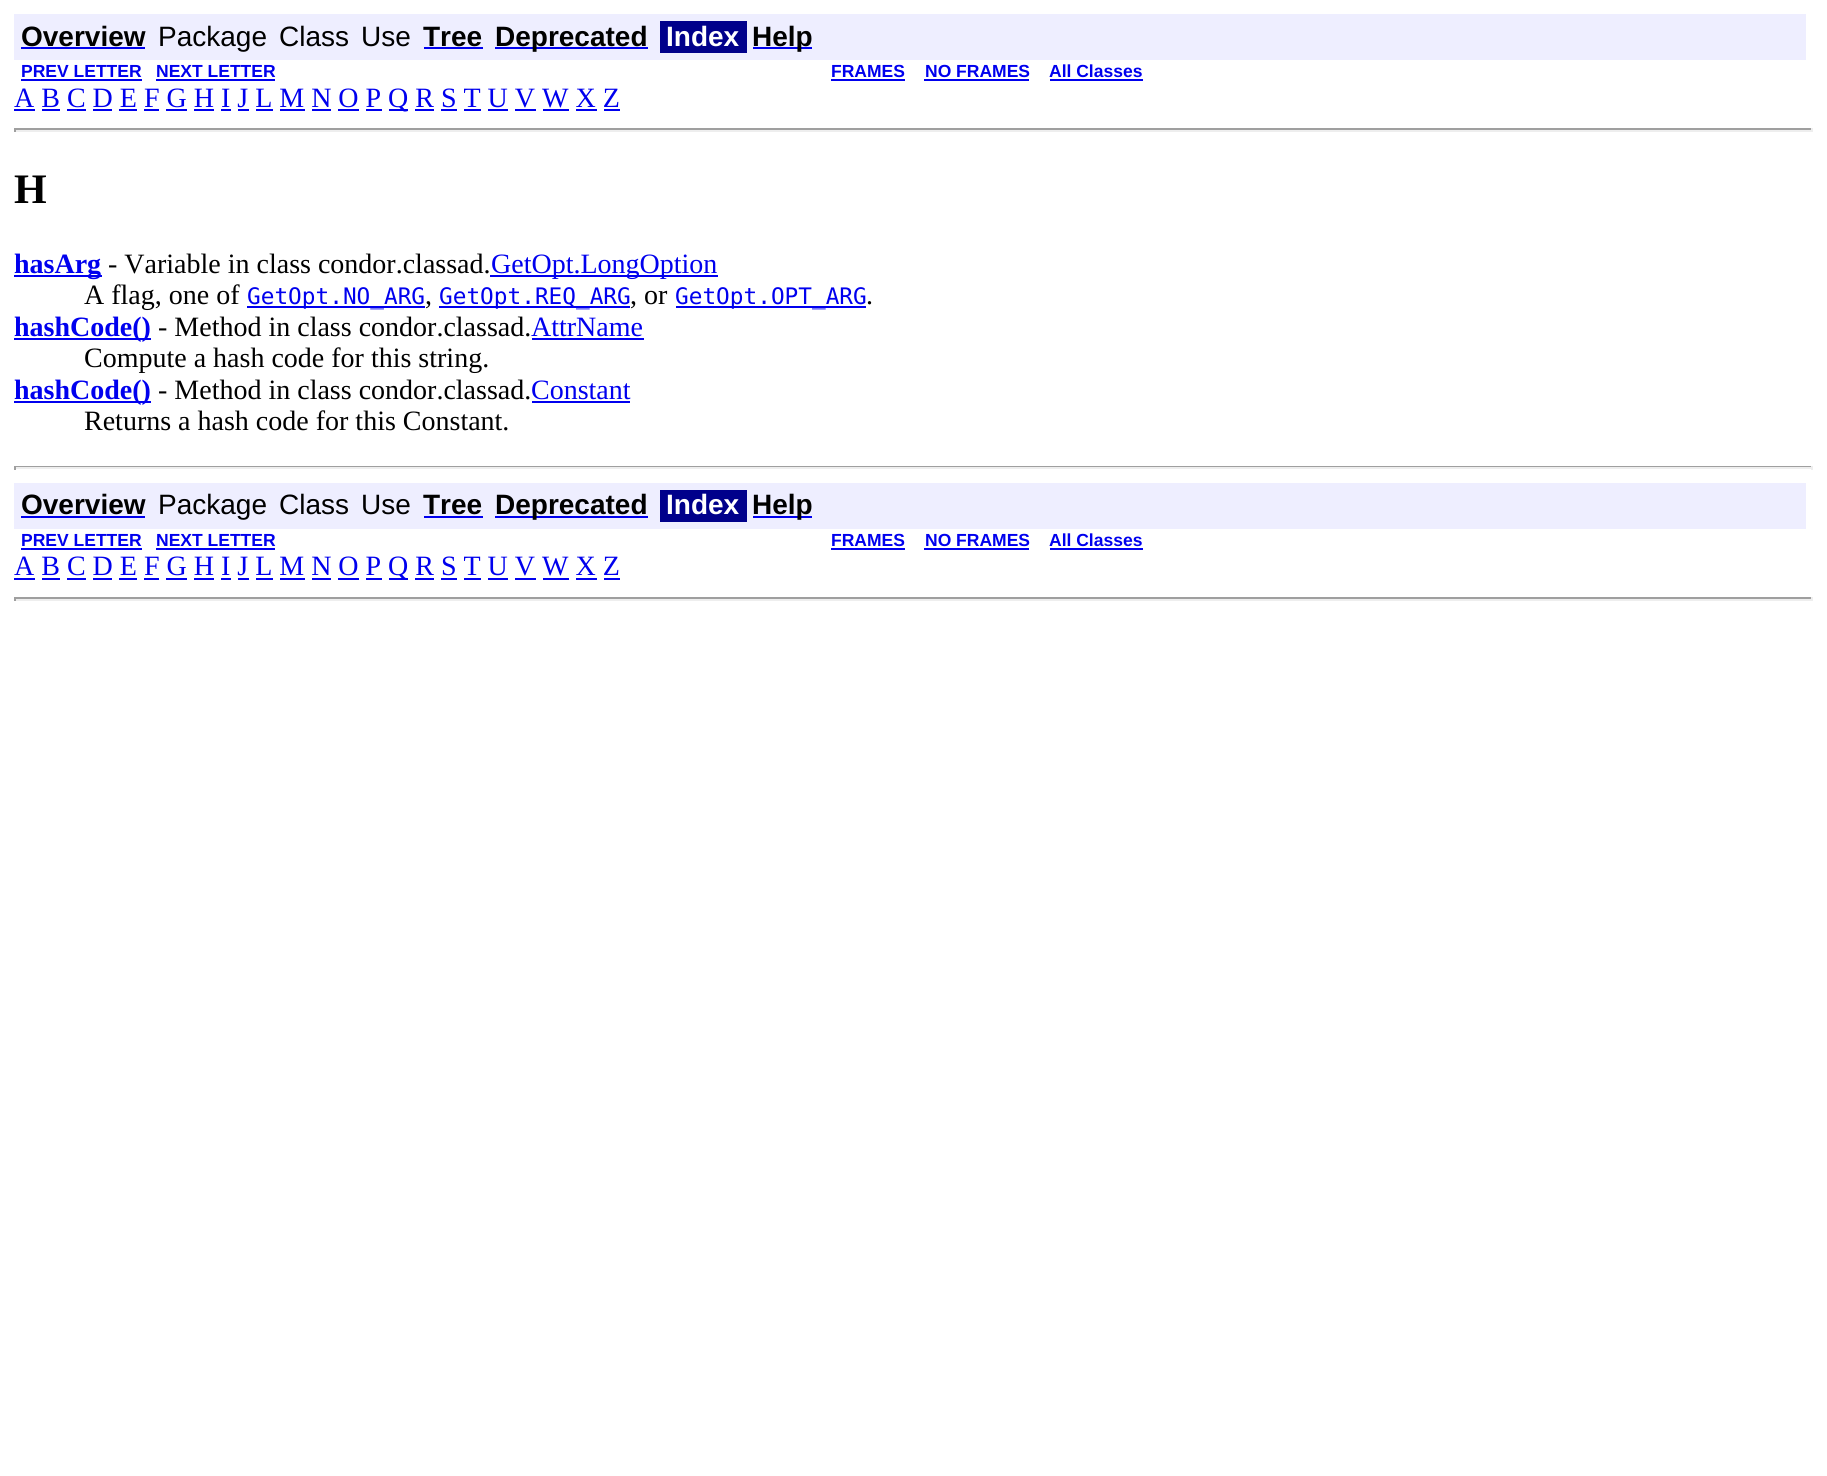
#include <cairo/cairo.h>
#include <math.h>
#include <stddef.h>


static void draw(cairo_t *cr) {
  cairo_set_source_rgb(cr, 1, 1, 1);
  cairo_paint(cr);
  cairo_set_source_rgb(cr, 238 / 255.0, 238 / 255.0, 1);
  cairo_rectangle(cr, 14, 14, 1792, 46);
  cairo_fill(cr);
  cairo_set_source_rgb(cr, 0, 0, 238 / 255.0);
  cairo_rectangle(cr, 21, 47, 124, 2);
  cairo_fill(cr);
  cairo_rectangle(cr, 424, 47, 59, 2);
  cairo_fill(cr);
  cairo_rectangle(cr, 495, 47, 153, 2);
  cairo_fill(cr);
  cairo_set_source_rgb(cr, 0, 0, 139 / 255.0);
  cairo_rectangle(cr, 660, 21, 87, 32);
  cairo_fill(cr);
  cairo_set_source_rgb(cr, 0, 0, 238 / 255.0);
  cairo_rectangle(cr, 753, 47, 59, 2);
  cairo_fill(cr);
  cairo_rectangle(cr, 21, 79, 121, 2);
  cairo_fill(cr);
  cairo_rectangle(cr, 156, 79, 119, 2);
  cairo_fill(cr);
  cairo_rectangle(cr, 831, 79, 74, 2);
  cairo_fill(cr);
  cairo_rectangle(cr, 924, 79, 105, 2);
  cairo_fill(cr);
  cairo_rectangle(cr, 1050, 79, 93, 2);
  cairo_fill(cr);
  cairo_rectangle(cr, 14, 109, 21, 2);
  cairo_fill(cr);
  cairo_rectangle(cr, 389, 109, 19, 2);
  cairo_fill(cr);
  cairo_rectangle(cr, 42, 109, 18, 2);
  cairo_fill(cr);
  cairo_rectangle(cr, 67, 109, 19, 2);
  cairo_fill(cr);
  cairo_rectangle(cr, 93, 109, 19, 2);
  cairo_fill(cr);
  cairo_rectangle(cr, 119, 109, 18, 2);
  cairo_fill(cr);
  cairo_rectangle(cr, 144, 109, 15, 2);
  cairo_fill(cr);
  cairo_rectangle(cr, 166, 109, 21, 2);
  cairo_fill(cr);
  cairo_rectangle(cr, 194, 109, 20, 2);
  cairo_fill(cr);
  cairo_rectangle(cr, 221, 109, 10, 2);
  cairo_fill(cr);
  cairo_rectangle(cr, 238, 109, 11, 2);
  cairo_fill(cr);
  cairo_rectangle(cr, 256, 109, 17, 2);
  cairo_fill(cr);
  cairo_rectangle(cr, 280, 109, 25, 2);
  cairo_fill(cr);
  cairo_rectangle(cr, 312, 109, 19, 2);
  cairo_fill(cr);
  cairo_rectangle(cr, 338, 109, 21, 2);
  cairo_fill(cr);
  cairo_rectangle(cr, 366, 109, 16, 2);
  cairo_fill(cr);
  cairo_rectangle(cr, 415, 109, 19, 2);
  cairo_fill(cr);
  cairo_rectangle(cr, 441, 109, 16, 2);
  cairo_fill(cr);
  cairo_rectangle(cr, 464, 109, 17, 2);
  cairo_fill(cr);
  cairo_rectangle(cr, 488, 109, 20, 2);
  cairo_fill(cr);
  cairo_rectangle(cr, 515, 109, 21, 2);
  cairo_fill(cr);
  cairo_rectangle(cr, 543, 109, 26, 2);
  cairo_fill(cr);
  cairo_rectangle(cr, 576, 109, 21, 2);
  cairo_fill(cr);
  cairo_rectangle(cr, 604, 109, 16, 2);
  cairo_fill(cr);
  cairo_set_source_rgb(cr, 159 / 255.0, 159 / 255.0, 159 / 255.0);
  cairo_rectangle(cr, 14, 128, 1799, 2);
  cairo_fill(cr);
  cairo_set_source_rgb(cr, 238 / 255.0, 238 / 255.0, 238 / 255.0);
  cairo_rectangle(cr, 1811, 128, 2, 4);
  cairo_fill(cr);
  cairo_rectangle(cr, 14, 130, 1799, 2);
  cairo_fill(cr);
  cairo_set_source_rgb(cr, 159 / 255.0, 159 / 255.0, 159 / 255.0);
  cairo_rectangle(cr, 14, 128, 2, 4);
  cairo_fill(cr);
  cairo_set_source_rgb(cr, 0, 0, 238 / 255.0);
  cairo_rectangle(cr, 14, 275, 88, 2);
  cairo_fill(cr);
  cairo_rectangle(cr, 490, 275, 228, 2);
  cairo_fill(cr);
  cairo_rectangle(cr, 247, 306, 178, 2);
  cairo_fill(cr);
  cairo_rectangle(cr, 439, 306, 191, 2);
  cairo_fill(cr);
  cairo_rectangle(cr, 676, 306, 190, 2);
  cairo_fill(cr);
  cairo_rectangle(cr, 14, 338, 137, 2);
  cairo_fill(cr);
  cairo_rectangle(cr, 532, 338, 112, 2);
  cairo_fill(cr);
  cairo_rectangle(cr, 14, 401, 137, 2);
  cairo_fill(cr);
  cairo_rectangle(cr, 532, 401, 98, 2);
  cairo_fill(cr);
  cairo_set_source_rgb(cr, 159 / 255.0, 159 / 255.0, 159 / 255.0);
  cairo_rectangle(cr, 14, 466, 1799, 1);
  cairo_fill(cr);
  cairo_set_source_rgb(cr, 238 / 255.0, 238 / 255.0, 238 / 255.0);
  cairo_rectangle(cr, 1811, 466, 2, 4);
  cairo_fill(cr);
  cairo_rectangle(cr, 14, 467, 1799, 2);
  cairo_fill(cr);
  cairo_set_source_rgb(cr, 159 / 255.0, 159 / 255.0, 159 / 255.0);
  cairo_rectangle(cr, 14, 466, 2, 4);
  cairo_fill(cr);
  cairo_set_source_rgb(cr, 238 / 255.0, 238 / 255.0, 1);
  cairo_rectangle(cr, 14, 483, 1792, 46);
  cairo_fill(cr);
  cairo_set_source_rgb(cr, 0, 0, 238 / 255.0);
  cairo_rectangle(cr, 21, 516, 124, 2);
  cairo_fill(cr);
  cairo_rectangle(cr, 424, 516, 59, 2);
  cairo_fill(cr);
  cairo_rectangle(cr, 495, 516, 153, 2);
  cairo_fill(cr);
  cairo_set_source_rgb(cr, 0, 0, 139 / 255.0);
  cairo_rectangle(cr, 660, 490, 87, 32);
  cairo_fill(cr);
  cairo_set_source_rgb(cr, 0, 0, 238 / 255.0);
  cairo_rectangle(cr, 753, 516, 59, 2);
  cairo_fill(cr);
  cairo_rectangle(cr, 21, 548, 121, 2);
  cairo_fill(cr);
  cairo_rectangle(cr, 156, 548, 119, 2);
  cairo_fill(cr);
  cairo_rectangle(cr, 831, 548, 74, 2);
  cairo_fill(cr);
  cairo_rectangle(cr, 924, 548, 105, 2);
  cairo_fill(cr);
  cairo_rectangle(cr, 1050, 548, 93, 2);
  cairo_fill(cr);
  cairo_rectangle(cr, 14, 578, 21, 2);
  cairo_fill(cr);
  cairo_rectangle(cr, 389, 578, 19, 2);
  cairo_fill(cr);
  cairo_rectangle(cr, 42, 578, 18, 2);
  cairo_fill(cr);
  cairo_rectangle(cr, 67, 578, 19, 2);
  cairo_fill(cr);
  cairo_rectangle(cr, 93, 578, 19, 2);
  cairo_fill(cr);
  cairo_rectangle(cr, 119, 578, 18, 2);
  cairo_fill(cr);
  cairo_rectangle(cr, 144, 578, 15, 2);
  cairo_fill(cr);
  cairo_rectangle(cr, 166, 578, 21, 2);
  cairo_fill(cr);
  cairo_rectangle(cr, 194, 578, 20, 2);
  cairo_fill(cr);
  cairo_rectangle(cr, 221, 578, 10, 2);
  cairo_fill(cr);
  cairo_rectangle(cr, 238, 578, 11, 2);
  cairo_fill(cr);
  cairo_rectangle(cr, 256, 578, 17, 2);
  cairo_fill(cr);
  cairo_rectangle(cr, 280, 578, 25, 2);
  cairo_fill(cr);
  cairo_rectangle(cr, 312, 578, 19, 2);
  cairo_fill(cr);
  cairo_rectangle(cr, 338, 578, 21, 2);
  cairo_fill(cr);
  cairo_rectangle(cr, 366, 578, 16, 2);
  cairo_fill(cr);
  cairo_rectangle(cr, 415, 578, 19, 2);
  cairo_fill(cr);
  cairo_rectangle(cr, 441, 578, 16, 2);
  cairo_fill(cr);
  cairo_rectangle(cr, 464, 578, 17, 2);
  cairo_fill(cr);
  cairo_rectangle(cr, 488, 578, 20, 2);
  cairo_fill(cr);
  cairo_rectangle(cr, 515, 578, 21, 2);
  cairo_fill(cr);
  cairo_rectangle(cr, 543, 578, 26, 2);
  cairo_fill(cr);
  cairo_rectangle(cr, 576, 578, 21, 2);
  cairo_fill(cr);
  cairo_rectangle(cr, 604, 578, 16, 2);
  cairo_fill(cr);
  cairo_set_source_rgb(cr, 159 / 255.0, 159 / 255.0, 159 / 255.0);
  cairo_rectangle(cr, 14, 597, 1799, 2);
  cairo_fill(cr);
  cairo_set_source_rgb(cr, 238 / 255.0, 238 / 255.0, 238 / 255.0);
  cairo_rectangle(cr, 1811, 597, 2, 4);
  cairo_fill(cr);
  cairo_rectangle(cr, 14, 599, 1799, 2);
  cairo_fill(cr);
  cairo_set_source_rgb(cr, 159 / 255.0, 159 / 255.0, 159 / 255.0);
  cairo_rectangle(cr, 14, 597, 2, 4);
  cairo_fill(cr);
  cairo_select_font_face(cr, "Liberation Sans", CAIRO_FONT_SLANT_NORMAL, CAIRO_FONT_WEIGHT_BOLD);
  cairo_set_font_size(cr, 28);
  cairo_set_source_rgb(cr, 0, 0, 0);
  cairo_move_to(cr, 21, 46);
  cairo_show_text(cr, "Overview");
  cairo_select_font_face(cr, "Liberation Sans", CAIRO_FONT_SLANT_NORMAL, CAIRO_FONT_WEIGHT_NORMAL);
  cairo_move_to(cr, 158, 46);
  cairo_show_text(cr, "Package");
  cairo_move_to(cr, 279, 46);
  cairo_show_text(cr, "Class");
  cairo_move_to(cr, 361, 46);
  cairo_show_text(cr, "Use");
  cairo_select_font_face(cr, "Liberation Sans", CAIRO_FONT_SLANT_NORMAL, CAIRO_FONT_WEIGHT_BOLD);
  cairo_move_to(cr, 423, 46);
  cairo_show_text(cr, "Tree");
  cairo_move_to(cr, 495, 46);
  cairo_show_text(cr, "Deprecated");
  cairo_set_source_rgb(cr, 1, 1, 1);
  cairo_move_to(cr, 666, 46);
  cairo_show_text(cr, "Index");
  cairo_set_source_rgb(cr, 0, 0, 0);
  cairo_move_to(cr, 752, 46);
  cairo_show_text(cr, "Help");
  cairo_set_font_size(cr, 17.5);
  cairo_set_source_rgb(cr, 0, 0, 238 / 255.0);
  cairo_move_to(cr, 21, 77);
  cairo_show_text(cr, "PREV LETTER");
  cairo_move_to(cr, 156, 77);
  cairo_show_text(cr, "NEXT LETTER");
  cairo_move_to(cr, 831, 77);
  cairo_show_text(cr, "FRAMES");
  cairo_move_to(cr, 925, 77);
  cairo_show_text(cr, "NO FRAMES");
  cairo_move_to(cr, 1049, 77);
  cairo_show_text(cr, "All Classes");
  cairo_select_font_face(cr, "Liberation Serif", CAIRO_FONT_SLANT_NORMAL, CAIRO_FONT_WEIGHT_NORMAL);
  cairo_set_font_size(cr, 28);
  cairo_move_to(cr, 14, 107);
  cairo_show_text(cr, "A B C D E F G H I J L M N O P");
  cairo_move_to(cr, 388, 107);
  cairo_show_text(cr, "Q R S T U V W X Z");
  cairo_select_font_face(cr, "Liberation Serif", CAIRO_FONT_SLANT_NORMAL, CAIRO_FONT_WEIGHT_BOLD);
  cairo_set_font_size(cr, 42);
  cairo_set_source_rgb(cr, 0, 0, 0);
  cairo_move_to(cr, 14, 203);
  cairo_show_text(cr, "H");
  cairo_set_font_size(cr, 28);
  cairo_set_source_rgb(cr, 0, 0, 238 / 255.0);
  cairo_move_to(cr, 14, 273);
  cairo_show_text(cr, "hasArg");
  cairo_select_font_face(cr, "Liberation Serif", CAIRO_FONT_SLANT_NORMAL, CAIRO_FONT_WEIGHT_NORMAL);
  cairo_set_source_rgb(cr, 0, 0, 0);
  cairo_move_to(cr, 108, 273);
  cairo_show_text(cr, "- Variable in class condor.classad.");
  cairo_set_source_rgb(cr, 0, 0, 238 / 255.0);
  cairo_move_to(cr, 491, 273);
  cairo_show_text(cr, "GetOpt.LongOption");
  cairo_set_source_rgb(cr, 0, 0, 0);
  cairo_move_to(cr, 84, 304);
  cairo_show_text(cr, "A flag, one of");
  cairo_select_font_face(cr, "DejaVu Sans Mono", CAIRO_FONT_SLANT_NORMAL, CAIRO_FONT_WEIGHT_NORMAL);
  cairo_set_font_size(cr, 22.75);
  cairo_set_source_rgb(cr, 0, 0, 238 / 255.0);
  cairo_move_to(cr, 247, 304);
  cairo_show_text(cr, "GetOpt.NO_ARG");
  cairo_select_font_face(cr, "Liberation Serif", CAIRO_FONT_SLANT_NORMAL, CAIRO_FONT_WEIGHT_NORMAL);
  cairo_set_font_size(cr, 28);
  cairo_set_source_rgb(cr, 0, 0, 0);
  cairo_move_to(cr, 425, 304);
  cairo_show_text(cr, ",");
  cairo_select_font_face(cr, "DejaVu Sans Mono", CAIRO_FONT_SLANT_NORMAL, CAIRO_FONT_WEIGHT_NORMAL);
  cairo_set_font_size(cr, 22.75);
  cairo_set_source_rgb(cr, 0, 0, 238 / 255.0);
  cairo_move_to(cr, 439, 304);
  cairo_show_text(cr, "GetOpt.REQ_ARG");
  cairo_select_font_face(cr, "Liberation Serif", CAIRO_FONT_SLANT_NORMAL, CAIRO_FONT_WEIGHT_NORMAL);
  cairo_set_font_size(cr, 28);
  cairo_set_source_rgb(cr, 0, 0, 0);
  cairo_move_to(cr, 630, 304);
  cairo_show_text(cr, ", or");
  cairo_select_font_face(cr, "DejaVu Sans Mono", CAIRO_FONT_SLANT_NORMAL, CAIRO_FONT_WEIGHT_NORMAL);
  cairo_set_font_size(cr, 22.75);
  cairo_set_source_rgb(cr, 0, 0, 238 / 255.0);
  cairo_move_to(cr, 675, 304);
  cairo_show_text(cr, "GetOpt.OPT_ARG");
  cairo_select_font_face(cr, "Liberation Serif", CAIRO_FONT_SLANT_NORMAL, CAIRO_FONT_WEIGHT_NORMAL);
  cairo_set_font_size(cr, 28);
  cairo_set_source_rgb(cr, 0, 0, 0);
  cairo_move_to(cr, 866, 304);
  cairo_show_text(cr, ".");
  cairo_select_font_face(cr, "Liberation Serif", CAIRO_FONT_SLANT_NORMAL, CAIRO_FONT_WEIGHT_BOLD);
  cairo_set_source_rgb(cr, 0, 0, 238 / 255.0);
  cairo_move_to(cr, 14, 336);
  cairo_show_text(cr, "hashCode()");
  cairo_select_font_face(cr, "Liberation Serif", CAIRO_FONT_SLANT_NORMAL, CAIRO_FONT_WEIGHT_NORMAL);
  cairo_set_source_rgb(cr, 0, 0, 0);
  cairo_move_to(cr, 158, 336);
  cairo_show_text(cr, "- Method in class condor.classad.");
  cairo_set_source_rgb(cr, 0, 0, 238 / 255.0);
  cairo_move_to(cr, 531, 336);
  cairo_show_text(cr, "AttrName");
  cairo_set_source_rgb(cr, 0, 0, 0);
  cairo_move_to(cr, 84, 367);
  cairo_show_text(cr, "Compute a hash code for this string.");
  cairo_select_font_face(cr, "Liberation Serif", CAIRO_FONT_SLANT_NORMAL, CAIRO_FONT_WEIGHT_BOLD);
  cairo_set_source_rgb(cr, 0, 0, 238 / 255.0);
  cairo_move_to(cr, 14, 399);
  cairo_show_text(cr, "hashCode()");
  cairo_select_font_face(cr, "Liberation Serif", CAIRO_FONT_SLANT_NORMAL, CAIRO_FONT_WEIGHT_NORMAL);
  cairo_set_source_rgb(cr, 0, 0, 0);
  cairo_move_to(cr, 158, 399);
  cairo_show_text(cr, "- Method in class condor.classad.");
  cairo_set_source_rgb(cr, 0, 0, 238 / 255.0);
  cairo_move_to(cr, 531, 399);
  cairo_show_text(cr, "Constant");
  cairo_set_source_rgb(cr, 0, 0, 0);
  cairo_move_to(cr, 84, 430);
  cairo_show_text(cr, "Returns a hash code for this Constant.");
  cairo_select_font_face(cr, "Liberation Sans", CAIRO_FONT_SLANT_NORMAL, CAIRO_FONT_WEIGHT_BOLD);
  cairo_move_to(cr, 21, 514);
  cairo_show_text(cr, "Overview");
  cairo_select_font_face(cr, "Liberation Sans", CAIRO_FONT_SLANT_NORMAL, CAIRO_FONT_WEIGHT_NORMAL);
  cairo_move_to(cr, 158, 514);
  cairo_show_text(cr, "Package");
  cairo_move_to(cr, 279, 514);
  cairo_show_text(cr, "Class");
  cairo_move_to(cr, 361, 514);
  cairo_show_text(cr, "Use");
  cairo_select_font_face(cr, "Liberation Sans", CAIRO_FONT_SLANT_NORMAL, CAIRO_FONT_WEIGHT_BOLD);
  cairo_move_to(cr, 423, 514);
  cairo_show_text(cr, "Tree");
  cairo_move_to(cr, 495, 514);
  cairo_show_text(cr, "Deprecated");
  cairo_set_source_rgb(cr, 1, 1, 1);
  cairo_move_to(cr, 666, 514);
  cairo_show_text(cr, "Index");
  cairo_set_source_rgb(cr, 0, 0, 0);
  cairo_move_to(cr, 752, 514);
  cairo_show_text(cr, "Help");
  cairo_set_font_size(cr, 17.5);
  cairo_set_source_rgb(cr, 0, 0, 238 / 255.0);
  cairo_move_to(cr, 21, 546);
  cairo_show_text(cr, "PREV LETTER");
  cairo_move_to(cr, 156, 546);
  cairo_show_text(cr, "NEXT LETTER");
  cairo_move_to(cr, 831, 546);
  cairo_show_text(cr, "FRAMES");
  cairo_move_to(cr, 925, 546);
  cairo_show_text(cr, "NO FRAMES");
  cairo_move_to(cr, 1049, 546);
  cairo_show_text(cr, "All Classes");
  cairo_select_font_face(cr, "Liberation Serif", CAIRO_FONT_SLANT_NORMAL, CAIRO_FONT_WEIGHT_NORMAL);
  cairo_set_font_size(cr, 28);
  cairo_move_to(cr, 14, 575);
  cairo_show_text(cr, "A B C D E F G H I J L M N O P");
  cairo_move_to(cr, 388, 575);
  cairo_show_text(cr, "Q R S T U V W X Z");
}

int main(void) {
  cairo_surface_t *surface = cairo_image_surface_create(CAIRO_FORMAT_RGB24, 1827, 1476);
  cairo_t *cr = cairo_create(surface);
  cairo_font_options_t *options = cairo_font_options_create();
  cairo_font_options_set_hint_metrics(options, CAIRO_HINT_METRICS_OFF);
  cairo_font_options_set_hint_style(options, CAIRO_HINT_STYLE_NONE);
  cairo_set_font_options(cr, options);
  cairo_set_miter_limit(cr, 4);
  draw(cr);
  cairo_surface_write_to_png(surface, "out.png");
  cairo_font_options_destroy(options);
  cairo_destroy(cr);
  cairo_surface_destroy(surface);
  return 0;
}
